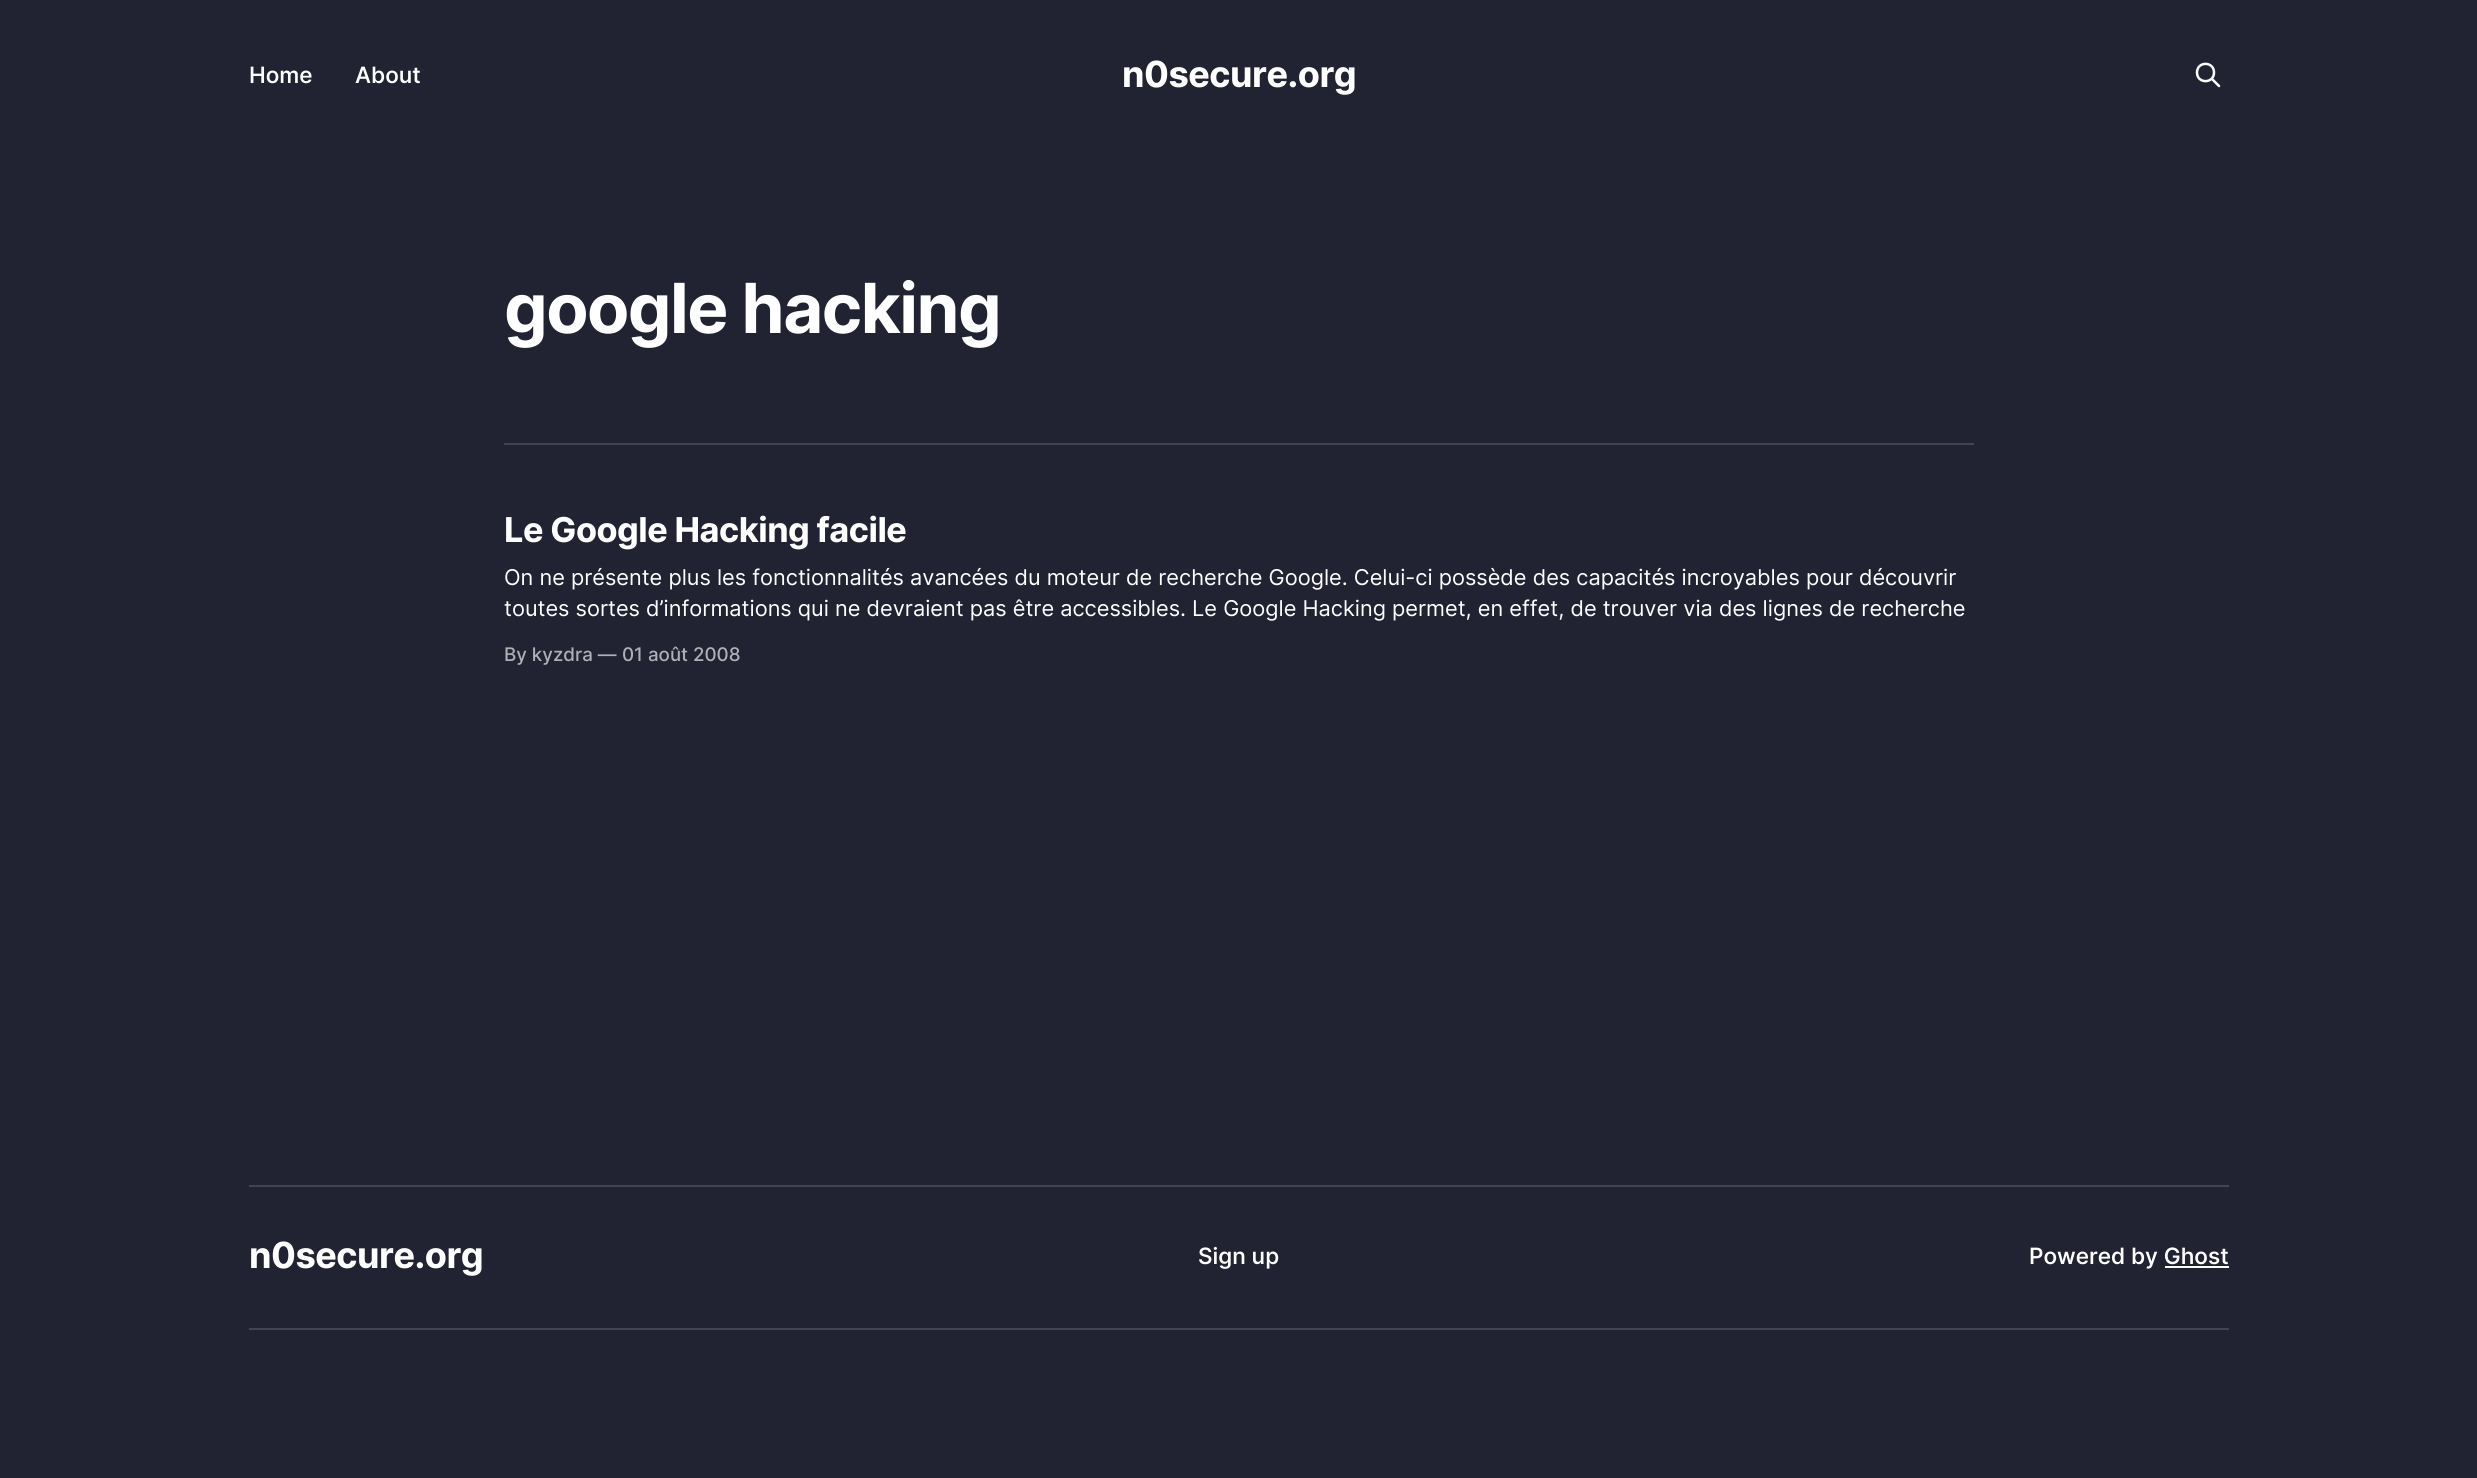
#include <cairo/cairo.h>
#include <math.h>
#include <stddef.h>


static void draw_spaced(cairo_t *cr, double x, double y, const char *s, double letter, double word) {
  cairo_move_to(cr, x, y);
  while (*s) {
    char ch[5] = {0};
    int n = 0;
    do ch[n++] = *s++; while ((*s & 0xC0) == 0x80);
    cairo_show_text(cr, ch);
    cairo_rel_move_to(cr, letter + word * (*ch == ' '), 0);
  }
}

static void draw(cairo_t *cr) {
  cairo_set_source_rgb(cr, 34 / 255.0, 35 / 255.0, 50 / 255.0);
  cairo_paint(cr);
  cairo_new_path(cr);
  cairo_move_to(cr, 2219, 86);
  cairo_line_to(cr, 2212, 79);
  cairo_move_to(cr, 2214, 72.5);
  cairo_curve_to(cr, 2214, 84, 2197, 84, 2197, 72.5);
  cairo_curve_to(cr, 2197, 61, 2214, 61, 2214, 72.5);
  cairo_close_path(cr);
  cairo_set_source_rgb(cr, 1, 1, 1);
  cairo_set_line_width(cr, 2.5);
  cairo_set_line_cap(cr, CAIRO_LINE_CAP_ROUND);
  cairo_set_line_join(cr, CAIRO_LINE_JOIN_ROUND);
  cairo_stroke(cr);
  cairo_set_source_rgb(cr, 67 / 255.0, 68 / 255.0, 81 / 255.0);
  cairo_rectangle(cr, 504, 443, 1470, 2);
  cairo_fill(cr);
  cairo_rectangle(cr, 249, 1185, 1980, 2);
  cairo_fill(cr);
  cairo_rectangle(cr, 249, 1328, 1980, 2);
  cairo_fill(cr);
  cairo_set_source_rgb(cr, 1, 1, 1);
  cairo_rectangle(cr, 2165, 1266, 64, 2);
  cairo_fill(cr);
  cairo_select_font_face(cr, "Inter Medium", CAIRO_FONT_SLANT_NORMAL, CAIRO_FONT_WEIGHT_NORMAL);
  cairo_set_font_size(cr, 22.5);
  cairo_move_to(cr, 249, 83);
  cairo_show_text(cr, "Home");
  cairo_move_to(cr, 355, 83);
  cairo_show_text(cr, "About");
  cairo_select_font_face(cr, "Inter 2", CAIRO_FONT_SLANT_NORMAL, CAIRO_FONT_WEIGHT_BOLD);
  cairo_set_font_size(cr, 36);
  draw_spaced(cr, 1122, 87, "n0secure.org", -0.5, 0);
  cairo_select_font_face(cr, "Inter", CAIRO_FONT_SLANT_NORMAL, CAIRO_FONT_WEIGHT_BOLD);
  cairo_set_font_size(cr, 69);
  draw_spaced(cr, 504, 333, "google hacking", -1.5, 0);
  cairo_select_font_face(cr, "Inter 2", CAIRO_FONT_SLANT_NORMAL, CAIRO_FONT_WEIGHT_BOLD);
  cairo_set_font_size(cr, 34.25);
  draw_spaced(cr, 504, 542, "Le Google Hacking facile", -0.5, 0);
  cairo_select_font_face(cr, "Inter", CAIRO_FONT_SLANT_NORMAL, CAIRO_FONT_WEIGHT_NORMAL);
  cairo_set_font_size(cr, 21.75);
  cairo_move_to(cr, 504, 585);
  cairo_show_text(cr, "On ne présente plus les fonctionnalités avancées du moteur de recherche Google. Celui-ci possède des capacités incroyables pour découvrir");
  cairo_move_to(cr, 504, 616);
  cairo_show_text(cr, "toutes sortes d’informations qui ne devraient pas être accessibles. Le Google Hacking permet, en effet, de trouver via des lignes de recherche");
  cairo_select_font_face(cr, "Inter 2 Medium", CAIRO_FONT_SLANT_NORMAL, CAIRO_FONT_WEIGHT_NORMAL);
  cairo_set_font_size(cr, 18.75);
  cairo_set_source_rgb(cr, 175 / 255.0, 176 / 255.0, 181 / 255.0);
  cairo_move_to(cr, 504, 661);
  cairo_show_text(cr, "By kyzdra —");
  cairo_move_to(cr, 622, 661);
  cairo_show_text(cr, "01 août 2008");
  cairo_select_font_face(cr, "Inter 2", CAIRO_FONT_SLANT_NORMAL, CAIRO_FONT_WEIGHT_BOLD);
  cairo_set_font_size(cr, 36);
  cairo_set_source_rgb(cr, 1, 1, 1);
  draw_spaced(cr, 249, 1268, "n0secure.org", -0.5, 0);
  cairo_select_font_face(cr, "Inter Medium", CAIRO_FONT_SLANT_NORMAL, CAIRO_FONT_WEIGHT_NORMAL);
  cairo_set_font_size(cr, 22.5);
  cairo_move_to(cr, 1198, 1264);
  cairo_show_text(cr, "Sign up");
  cairo_move_to(cr, 2029, 1264);
  cairo_show_text(cr, "Powered by Ghost");
}

int main(void) {
  cairo_surface_t *surface = cairo_image_surface_create(CAIRO_FORMAT_RGB24, 2477, 1478);
  cairo_t *cr = cairo_create(surface);
  cairo_font_options_t *options = cairo_font_options_create();
  cairo_font_options_set_hint_metrics(options, CAIRO_HINT_METRICS_OFF);
  cairo_font_options_set_hint_style(options, CAIRO_HINT_STYLE_NONE);
  cairo_set_font_options(cr, options);
  cairo_set_miter_limit(cr, 4);
  draw(cr);
  cairo_surface_write_to_png(surface, "out.png");
  cairo_font_options_destroy(options);
  cairo_destroy(cr);
  cairo_surface_destroy(surface);
  return 0;
}
